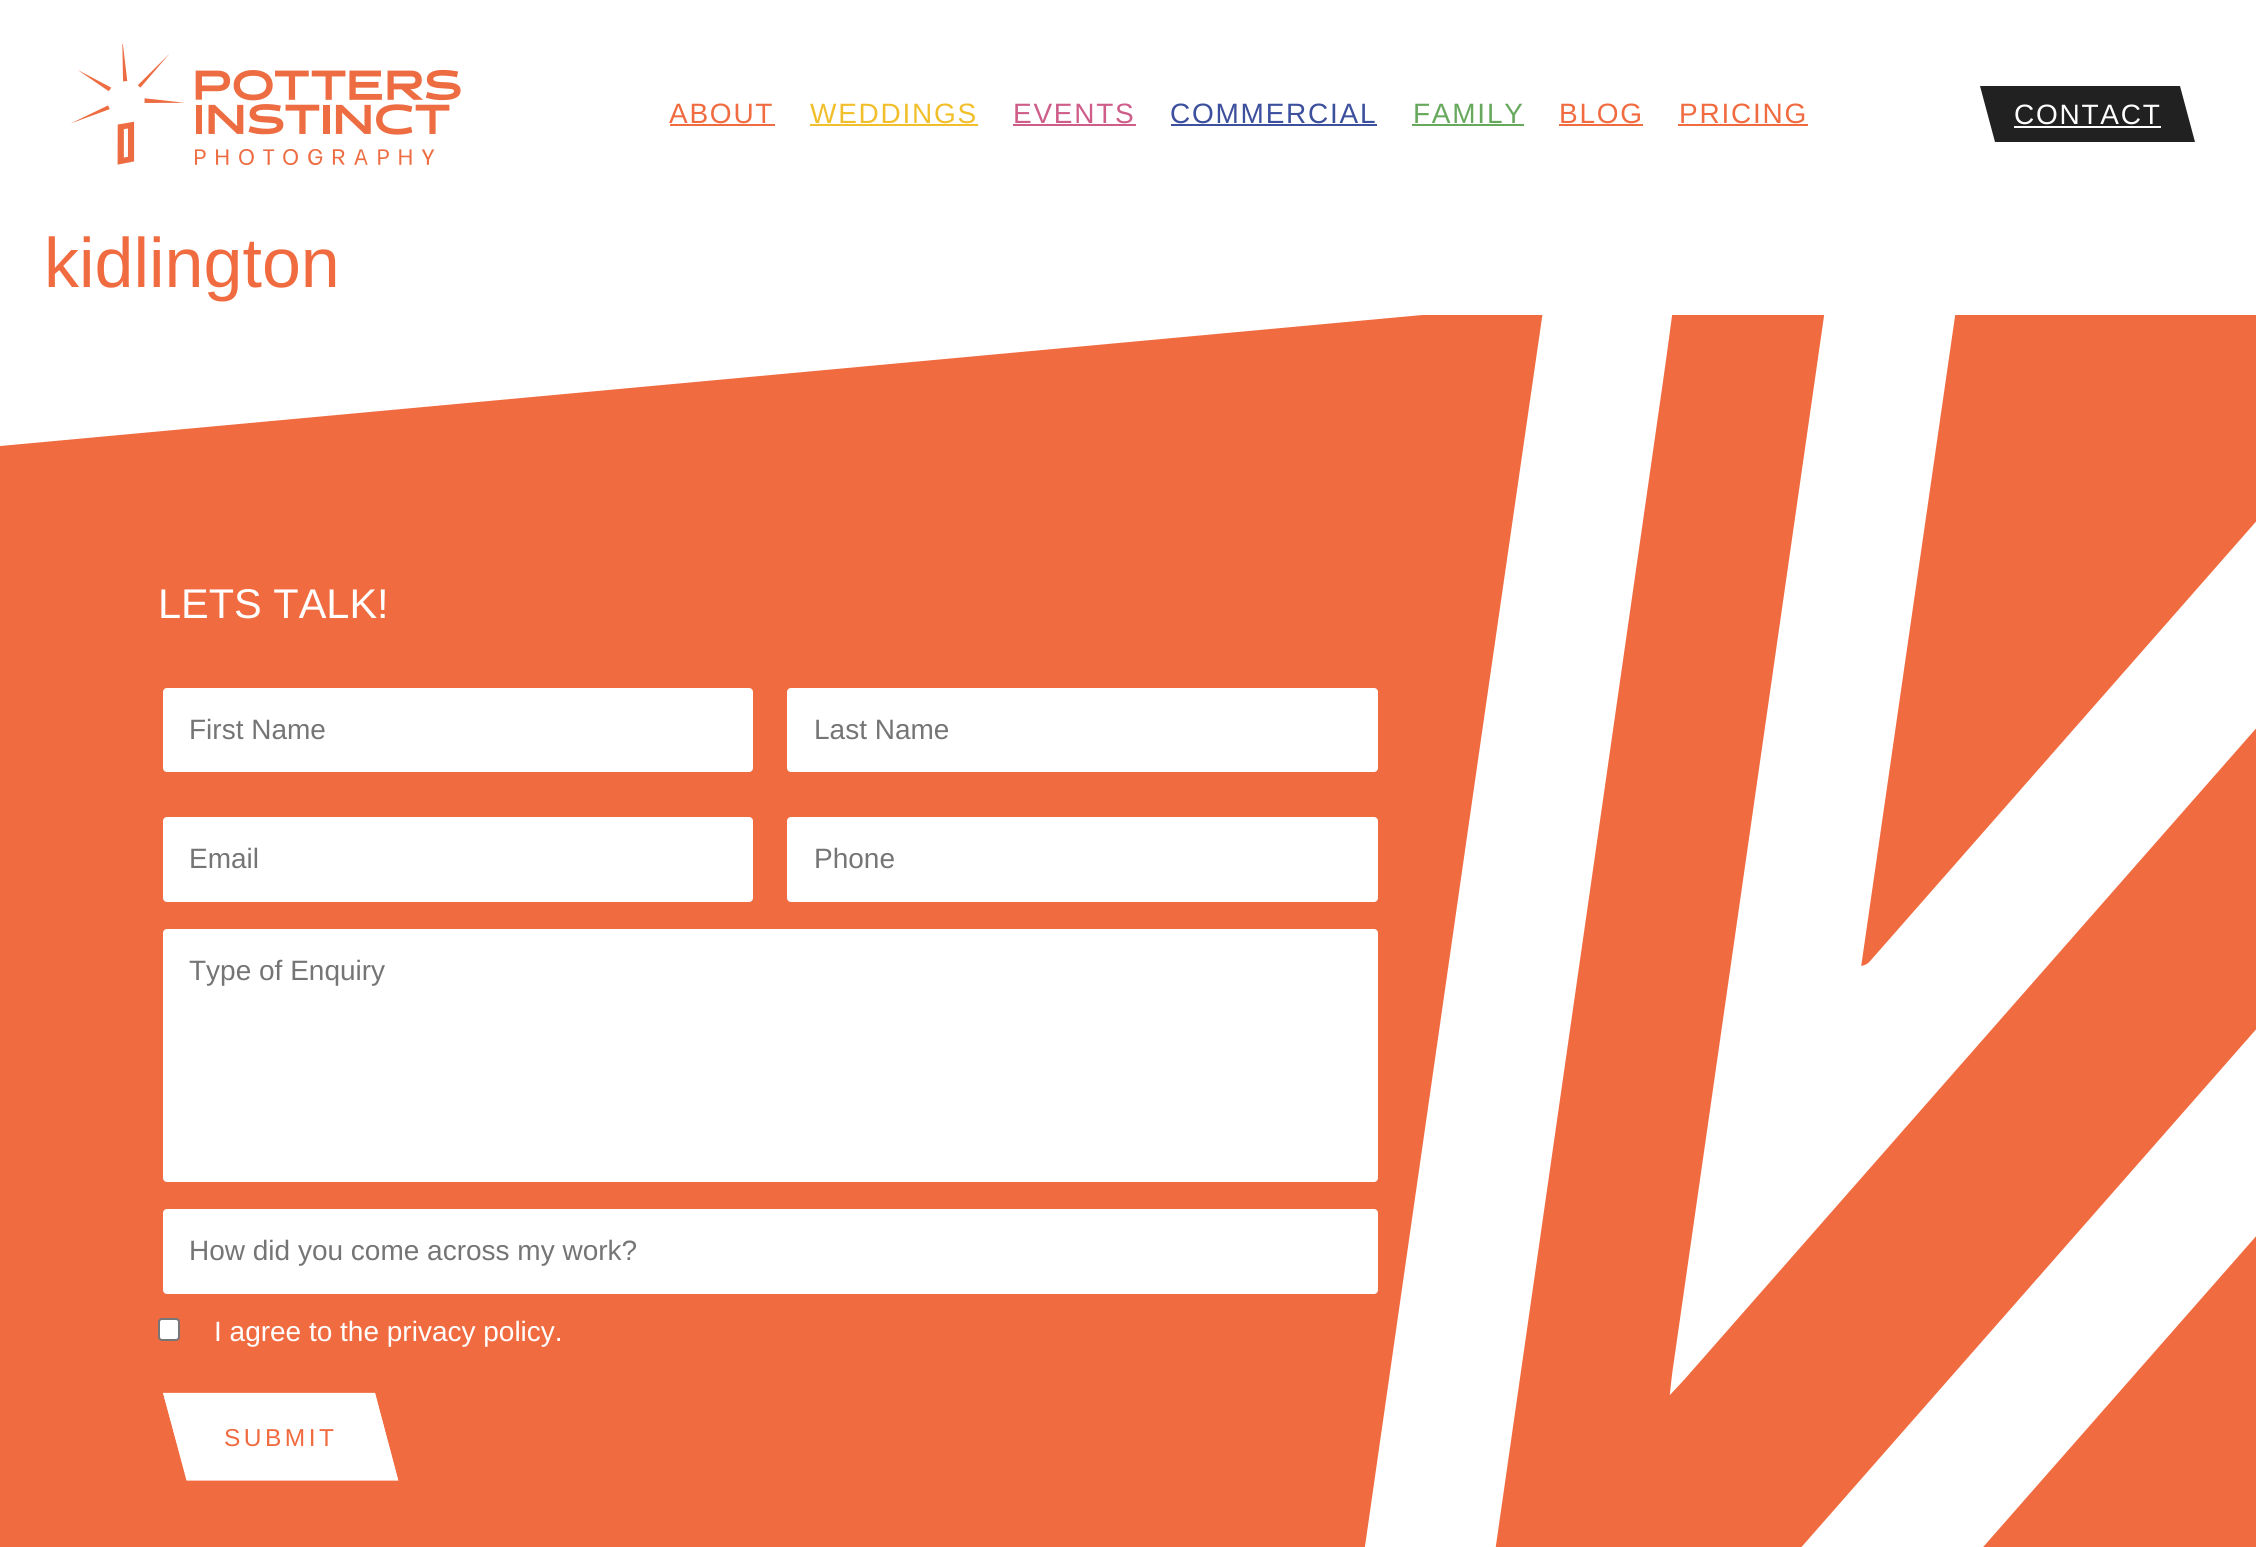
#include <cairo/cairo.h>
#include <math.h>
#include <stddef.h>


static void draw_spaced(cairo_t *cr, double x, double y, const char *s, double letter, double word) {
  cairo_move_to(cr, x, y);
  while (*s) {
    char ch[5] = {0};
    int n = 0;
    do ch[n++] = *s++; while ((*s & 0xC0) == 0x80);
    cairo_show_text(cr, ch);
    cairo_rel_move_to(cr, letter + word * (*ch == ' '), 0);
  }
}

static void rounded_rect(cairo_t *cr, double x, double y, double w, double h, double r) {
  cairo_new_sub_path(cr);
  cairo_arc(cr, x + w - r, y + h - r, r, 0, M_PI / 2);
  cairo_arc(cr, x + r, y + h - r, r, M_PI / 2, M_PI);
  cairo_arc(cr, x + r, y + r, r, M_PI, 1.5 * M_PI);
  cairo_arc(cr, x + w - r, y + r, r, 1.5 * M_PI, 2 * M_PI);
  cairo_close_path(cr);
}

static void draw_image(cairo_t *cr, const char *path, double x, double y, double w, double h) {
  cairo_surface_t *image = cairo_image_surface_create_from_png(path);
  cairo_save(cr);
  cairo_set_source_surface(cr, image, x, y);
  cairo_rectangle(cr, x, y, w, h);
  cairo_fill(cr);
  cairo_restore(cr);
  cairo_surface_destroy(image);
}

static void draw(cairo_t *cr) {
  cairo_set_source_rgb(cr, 1, 1, 1);
  cairo_paint(cr);
  draw_image(cr, "images/1.png", 70, 44, 391, 122);
  cairo_set_source_rgb(cr, 241 / 255.0, 107 / 255.0, 64 / 255.0);
  cairo_rectangle(cr, 670, 124, 105, 2);
  cairo_fill(cr);
  cairo_set_source_rgb(cr, 242 / 255.0, 191 / 255.0, 44 / 255.0);
  cairo_rectangle(cr, 810, 124, 168, 2);
  cairo_fill(cr);
  cairo_set_source_rgb(cr, 206 / 255.0, 93 / 255.0, 137 / 255.0);
  cairo_rectangle(cr, 1013, 124, 123, 2);
  cairo_fill(cr);
  cairo_set_source_rgb(cr, 61 / 255.0, 80 / 255.0, 157 / 255.0);
  cairo_rectangle(cr, 1171, 124, 206, 2);
  cairo_fill(cr);
  cairo_set_source_rgb(cr, 103 / 255.0, 169 / 255.0, 92 / 255.0);
  cairo_rectangle(cr, 1412, 124, 112, 2);
  cairo_fill(cr);
  cairo_set_source_rgb(cr, 241 / 255.0, 107 / 255.0, 64 / 255.0);
  cairo_rectangle(cr, 1559, 124, 84, 2);
  cairo_fill(cr);
  cairo_rectangle(cr, 1678, 124, 130, 2);
  cairo_fill(cr);
  cairo_set_source_rgb(cr, 34 / 255.0, 33 / 255.0, 33 / 255.0);
  cairo_new_path(cr);
  cairo_move_to(cr, 1980, 86);
  cairo_line_to(cr, 2180, 86);
  cairo_line_to(cr, 2195, 142);
  cairo_line_to(cr, 1995, 142);
  cairo_close_path(cr);
  cairo_fill(cr);
  cairo_set_source_rgb(cr, 1, 1, 1);
  cairo_rectangle(cr, 2014, 126, 147, 2);
  cairo_fill(cr);
  cairo_set_source_rgb(cr, 241 / 255.0, 107 / 255.0, 64 / 255.0);
  cairo_new_path(cr);
  cairo_move_to(cr, 0, 446);
  cairo_line_to(cr, 0, 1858);
  cairo_line_to(cr, 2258, 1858);
  cairo_line_to(cr, 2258, 315);
  cairo_line_to(cr, 1422, 315);
  cairo_close_path(cr);
  cairo_fill(cr);
  draw_image(cr, "images/2.png", 1364, 315, 892, 1232);
  cairo_set_source_rgb(cr, 1, 1, 1);
  rounded_rect(cr, 160.5, 685.5, 595, 89, 6.5);
  cairo_fill_preserve(cr);
  cairo_set_source_rgb(cr, 241 / 255.0, 107 / 255.0, 64 / 255.0);
  cairo_set_line_width(cr, 5);
  cairo_stroke(cr);
  cairo_set_source_rgb(cr, 1, 1, 1);
  rounded_rect(cr, 784.5, 685.5, 596, 89, 6.5);
  cairo_fill_preserve(cr);
  cairo_set_source_rgb(cr, 241 / 255.0, 107 / 255.0, 64 / 255.0);
  cairo_stroke(cr);
  cairo_set_source_rgb(cr, 1, 1, 1);
  rounded_rect(cr, 160.5, 814.5, 595, 90, 6.5);
  cairo_fill_preserve(cr);
  cairo_set_source_rgb(cr, 241 / 255.0, 107 / 255.0, 64 / 255.0);
  cairo_stroke(cr);
  cairo_set_source_rgb(cr, 1, 1, 1);
  rounded_rect(cr, 784.5, 814.5, 596, 90, 6.5);
  cairo_fill_preserve(cr);
  cairo_set_source_rgb(cr, 241 / 255.0, 107 / 255.0, 64 / 255.0);
  cairo_stroke(cr);
  cairo_set_source_rgb(cr, 1, 1, 1);
  rounded_rect(cr, 160.5, 926.5, 1220, 258, 6.5);
  cairo_fill_preserve(cr);
  cairo_set_source_rgb(cr, 241 / 255.0, 107 / 255.0, 64 / 255.0);
  cairo_stroke(cr);
  cairo_set_source_rgb(cr, 1, 1, 1);
  rounded_rect(cr, 160.5, 1206.5, 1220, 90, 6.5);
  cairo_fill_preserve(cr);
  cairo_set_source_rgb(cr, 241 / 255.0, 107 / 255.0, 64 / 255.0);
  cairo_stroke(cr);
  cairo_set_source_rgb(cr, 1, 1, 1);
  rounded_rect(cr, 159, 1319, 20, 21, 3);
  cairo_fill_preserve(cr);
  cairo_set_source_rgb(cr, 118 / 255.0, 118 / 255.0, 118 / 255.0);
  cairo_set_line_width(cr, 2);
  cairo_stroke(cr);
  cairo_set_source_rgb(cr, 1, 1, 1);
  cairo_new_path(cr);
  cairo_move_to(cr, 163, 1393);
  cairo_line_to(cr, 375, 1393);
  cairo_line_to(cr, 398, 1480);
  cairo_line_to(cr, 187, 1480);
  cairo_close_path(cr);
  cairo_fill(cr);
  cairo_new_path(cr);
  cairo_move_to(cr, 166.5, 1395.5);
  cairo_line_to(cr, 373, 1395.5);
  cairo_line_to(cr, 395, 1478);
  cairo_line_to(cr, 188.5, 1478);
  cairo_close_path(cr);
  cairo_set_line_width(cr, 5.2);
  cairo_stroke(cr);
  cairo_select_font_face(cr, "Liberation Sans", CAIRO_FONT_SLANT_NORMAL, CAIRO_FONT_WEIGHT_NORMAL);
  cairo_set_font_size(cr, 28);
  cairo_set_source_rgb(cr, 241 / 255.0, 107 / 255.0, 64 / 255.0);
  draw_spaced(cr, 669, 123, "ABOUT", 1.75, 0);
  cairo_set_source_rgb(cr, 242 / 255.0, 191 / 255.0, 44 / 255.0);
  draw_spaced(cr, 810, 123, "WEDDINGS", 1.75, 0);
  cairo_set_source_rgb(cr, 206 / 255.0, 93 / 255.0, 137 / 255.0);
  draw_spaced(cr, 1013, 123, "EVENTS", 1.75, 0);
  cairo_set_source_rgb(cr, 61 / 255.0, 80 / 255.0, 157 / 255.0);
  draw_spaced(cr, 1170, 123, "COMMERCIAL", 1.75, 0);
  cairo_set_source_rgb(cr, 103 / 255.0, 169 / 255.0, 92 / 255.0);
  draw_spaced(cr, 1413, 123, "FAMILY", 1.75, 0);
  cairo_set_source_rgb(cr, 241 / 255.0, 107 / 255.0, 64 / 255.0);
  draw_spaced(cr, 1559, 123, "BLOG", 1.75, 0);
  draw_spaced(cr, 1679, 123, "PRICING", 1.75, 0);
  cairo_set_source_rgb(cr, 1, 1, 1);
  draw_spaced(cr, 2014, 124, "CONTACT", 1.75, 0);
  cairo_set_font_size(cr, 70);
  cairo_set_source_rgb(cr, 241 / 255.0, 107 / 255.0, 64 / 255.0);
  cairo_move_to(cr, 44, 287);
  cairo_show_text(cr, "kidlington");
  cairo_set_font_size(cr, 41.5);
  cairo_set_source_rgb(cr, 1, 1, 1);
  cairo_move_to(cr, 158, 618);
  cairo_show_text(cr, "LETS TALK!");
  cairo_set_font_size(cr, 28);
  cairo_set_source_rgb(cr, 117 / 255.0, 117 / 255.0, 117 / 255.0);
  cairo_move_to(cr, 189, 739);
  cairo_show_text(cr, "First Name");
  cairo_move_to(cr, 814, 739);
  cairo_show_text(cr, "Last Name");
  cairo_move_to(cr, 189, 868);
  cairo_show_text(cr, "Email");
  cairo_move_to(cr, 814, 868);
  cairo_show_text(cr, "Phone");
  cairo_move_to(cr, 189, 980);
  cairo_show_text(cr, "Type of Enquiry");
  cairo_move_to(cr, 189, 1260);
  cairo_show_text(cr, "How did you come across my work?");
  cairo_set_source_rgb(cr, 1, 1, 1);
  cairo_move_to(cr, 214, 1341);
  cairo_show_text(cr, "I agree to the privacy policy.");
  cairo_set_font_size(cr, 24.5);
  cairo_set_source_rgb(cr, 241 / 255.0, 107 / 255.0, 64 / 255.0);
  draw_spaced(cr, 224, 1446, "SUBMIT", 3.5, 0);
}

int main(void) {
  cairo_surface_t *surface = cairo_image_surface_create(CAIRO_FORMAT_RGB24, 2256, 1547);
  cairo_t *cr = cairo_create(surface);
  cairo_font_options_t *options = cairo_font_options_create();
  cairo_font_options_set_hint_metrics(options, CAIRO_HINT_METRICS_OFF);
  cairo_font_options_set_hint_style(options, CAIRO_HINT_STYLE_NONE);
  cairo_set_font_options(cr, options);
  cairo_set_miter_limit(cr, 4);
  draw(cr);
  cairo_surface_write_to_png(surface, "out.png");
  cairo_font_options_destroy(options);
  cairo_destroy(cr);
  cairo_surface_destroy(surface);
  return 0;
}
